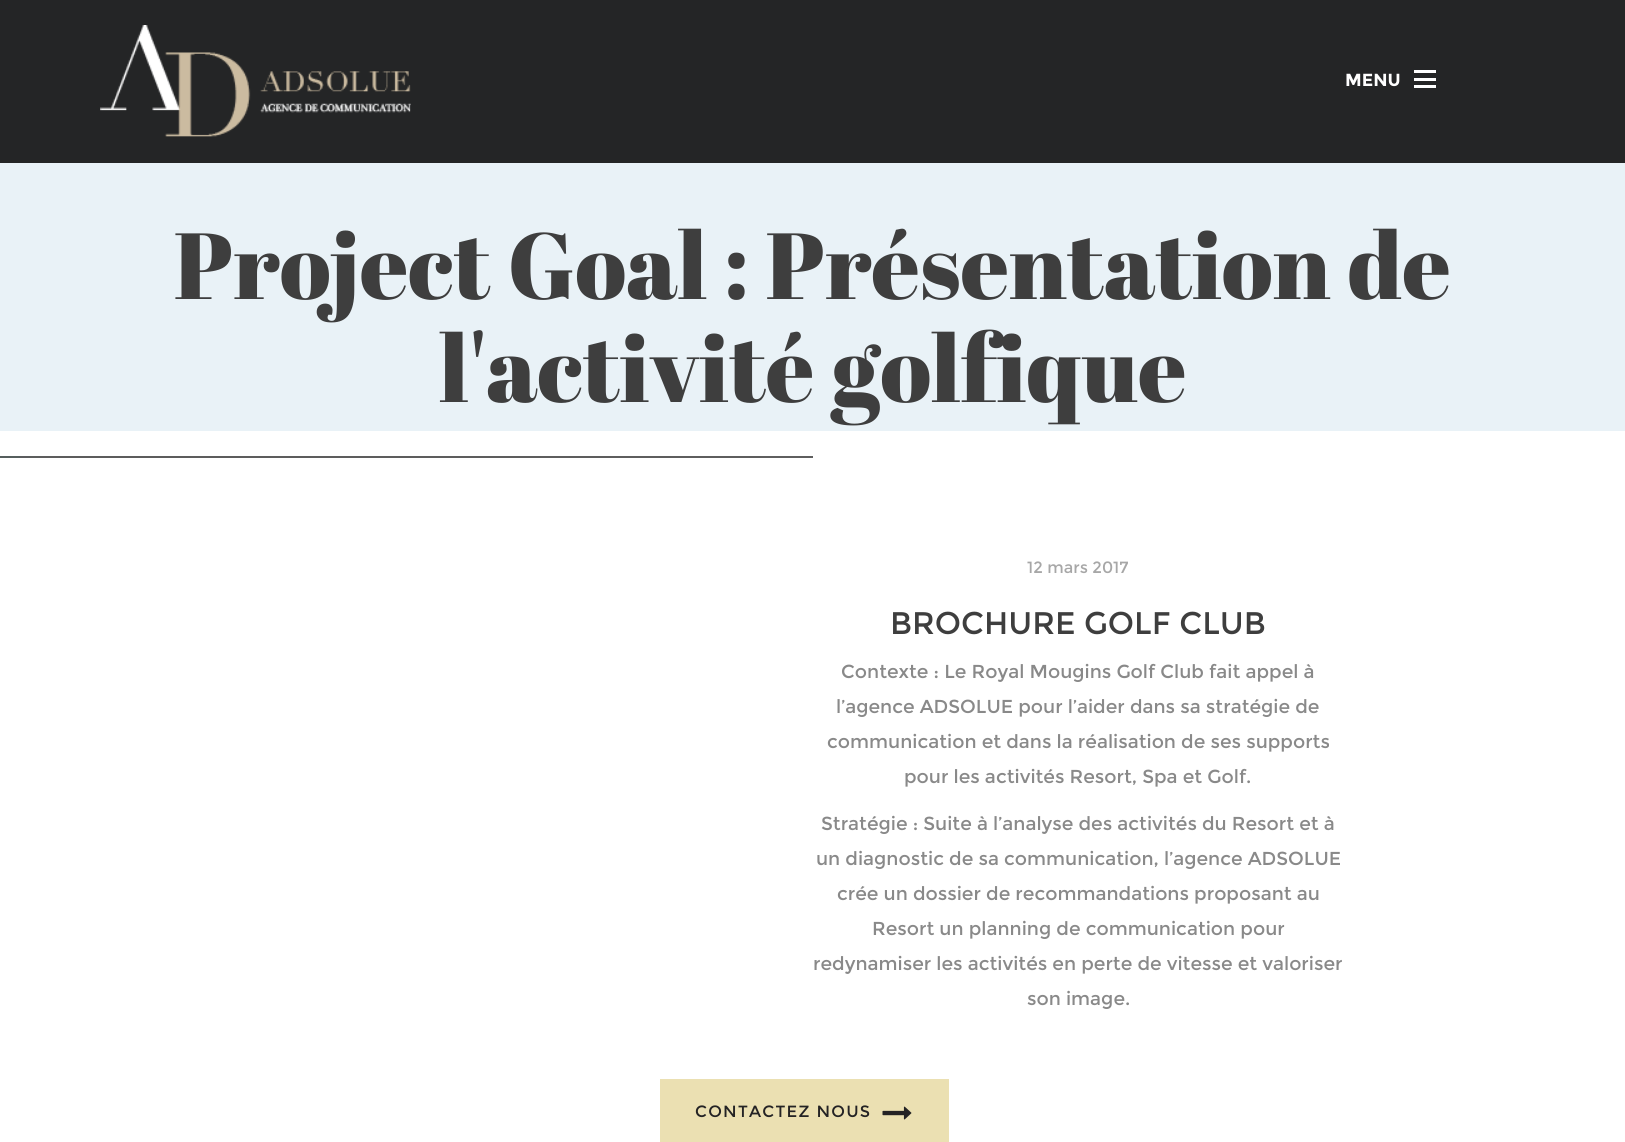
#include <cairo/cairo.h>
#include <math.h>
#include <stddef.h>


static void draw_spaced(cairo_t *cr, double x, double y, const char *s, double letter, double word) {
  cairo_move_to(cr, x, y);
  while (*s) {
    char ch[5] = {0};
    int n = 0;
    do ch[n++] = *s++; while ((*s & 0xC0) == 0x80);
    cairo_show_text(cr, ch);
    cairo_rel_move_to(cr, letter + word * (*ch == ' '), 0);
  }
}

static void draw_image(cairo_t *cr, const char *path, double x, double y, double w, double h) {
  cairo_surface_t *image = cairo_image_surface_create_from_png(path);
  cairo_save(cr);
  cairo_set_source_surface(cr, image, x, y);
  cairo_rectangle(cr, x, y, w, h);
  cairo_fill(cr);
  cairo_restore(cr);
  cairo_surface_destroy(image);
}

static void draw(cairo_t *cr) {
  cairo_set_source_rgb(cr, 1, 1, 1);
  cairo_paint(cr);
  cairo_set_source_rgb(cr, 36 / 255.0, 37 / 255.0, 38 / 255.0);
  cairo_rectangle(cr, 0, 0, 1625, 163);
  cairo_fill(cr);
  draw_image(cr, "images/1.png", 100, 25, 311, 112);
  cairo_set_source_rgb(cr, 1, 1, 1);
  cairo_rectangle(cr, 1414, 78, 22, 3);
  cairo_fill(cr);
  cairo_rectangle(cr, 1414, 70, 22, 3);
  cairo_fill(cr);
  cairo_rectangle(cr, 1414, 85, 22, 3);
  cairo_fill(cr);
  cairo_set_source_rgb(cr, 233 / 255.0, 242 / 255.0, 247 / 255.0);
  cairo_rectangle(cr, 0, 163, 1625, 268);
  cairo_fill(cr);
  draw_image(cr, "images/2.png", 0, 456, 813, 2);
  cairo_set_source_rgb(cr, 235 / 255.0, 224 / 255.0, 178 / 255.0);
  cairo_rectangle(cr, 660, 1079, 289, 63);
  cairo_fill(cr);
  draw_image(cr, "images/3.png", 882, 1106, 30, 14);
  cairo_select_font_face(cr, "Montserrat", CAIRO_FONT_SLANT_NORMAL, CAIRO_FONT_WEIGHT_BOLD);
  cairo_set_font_size(cr, 17.5);
  cairo_set_source_rgb(cr, 1, 1, 1);
  cairo_move_to(cr, 1345, 86);
  cairo_show_text(cr, "MENU");
  cairo_select_font_face(cr, "Abril Fatface", CAIRO_FONT_SLANT_NORMAL, CAIRO_FONT_WEIGHT_NORMAL);
  cairo_set_font_size(cr, 93.75);
  cairo_set_source_rgb(cr, 62 / 255.0, 62 / 255.0, 62 / 255.0);
  cairo_move_to(cr, 174, 299);
  cairo_show_text(cr, "Project Goal : Présentation de");
  cairo_move_to(cr, 439, 402);
  cairo_show_text(cr, "l'activité golfique");
  cairo_select_font_face(cr, "Montserrat", CAIRO_FONT_SLANT_NORMAL, CAIRO_FONT_WEIGHT_NORMAL);
  cairo_set_font_size(cr, 16.25);
  cairo_set_source_rgb(cr, 167 / 255.0, 167 / 255.0, 167 / 255.0);
  cairo_move_to(cr, 1027, 573);
  cairo_show_text(cr, "12 mars 2017");
  cairo_set_font_size(cr, 31.25);
  cairo_set_source_rgb(cr, 62 / 255.0, 62 / 255.0, 62 / 255.0);
  cairo_move_to(cr, 890, 634);
  cairo_show_text(cr, "BROCHURE GOLF CLUB");
  cairo_set_font_size(cr, 18.75);
  cairo_set_source_rgb(cr, 137 / 255.0, 137 / 255.0, 137 / 255.0);
  cairo_move_to(cr, 841, 678);
  cairo_show_text(cr, "Contexte : Le Royal Mougins Golf Club fait appel à");
  cairo_move_to(cr, 836, 713);
  cairo_show_text(cr, "l’agence ADSOLUE pour l’aider dans sa stratégie de");
  cairo_move_to(cr, 827, 748);
  cairo_show_text(cr, "communication et dans la réalisation de ses supports");
  cairo_move_to(cr, 904, 783);
  cairo_show_text(cr, "pour les activités Resort, Spa et Golf.");
  cairo_move_to(cr, 821, 830);
  cairo_show_text(cr, "Stratégie : Suite à l’analyse des activités du Resort et à");
  cairo_move_to(cr, 816, 865);
  cairo_show_text(cr, "un diagnostic de sa communication, l’agence ADSOLUE");
  cairo_move_to(cr, 837, 900);
  cairo_show_text(cr, "crée un dossier de recommandations proposant au");
  cairo_move_to(cr, 872, 935);
  cairo_show_text(cr, "Resort un planning de communication pour");
  cairo_move_to(cr, 813, 970);
  cairo_show_text(cr, "redynamiser les activités en perte de vitesse et valoriser");
  cairo_move_to(cr, 1027, 1005);
  cairo_show_text(cr, "son image.");
  cairo_set_font_size(cr, 16.25);
  cairo_set_source_rgb(cr, 36 / 255.0, 35 / 255.0, 36 / 255.0);
  draw_spaced(cr, 695, 1117, "CONTACTEZ NOUS", 1.25, 0);
}

int main(void) {
  cairo_surface_t *surface = cairo_image_surface_create(CAIRO_FORMAT_RGB24, 1625, 1142);
  cairo_t *cr = cairo_create(surface);
  cairo_font_options_t *options = cairo_font_options_create();
  cairo_font_options_set_hint_metrics(options, CAIRO_HINT_METRICS_OFF);
  cairo_font_options_set_hint_style(options, CAIRO_HINT_STYLE_NONE);
  cairo_set_font_options(cr, options);
  cairo_set_miter_limit(cr, 4);
  draw(cr);
  cairo_surface_write_to_png(surface, "out.png");
  cairo_font_options_destroy(options);
  cairo_destroy(cr);
  cairo_surface_destroy(surface);
  return 0;
}
